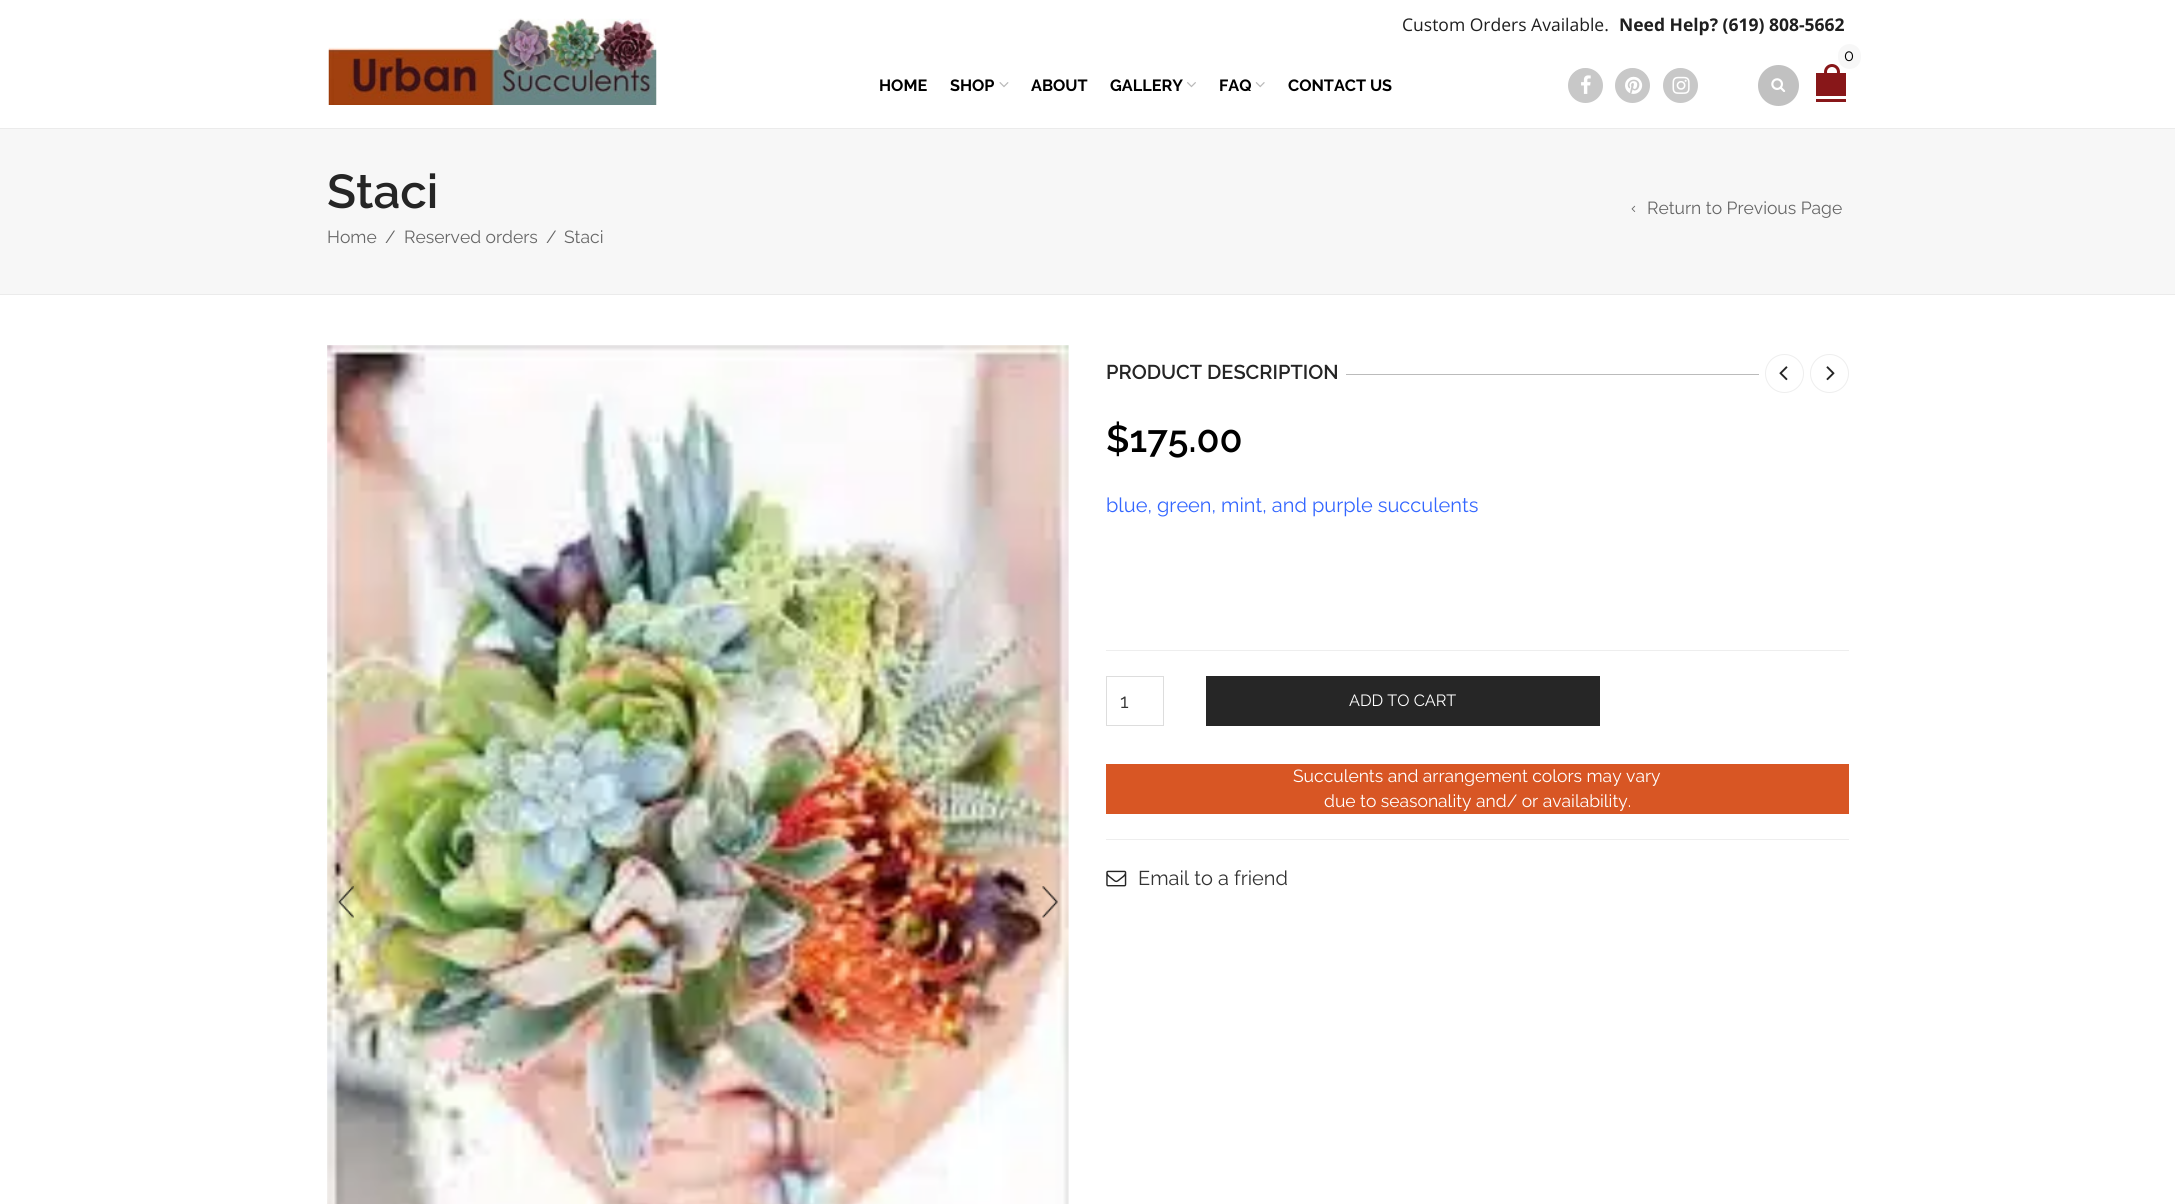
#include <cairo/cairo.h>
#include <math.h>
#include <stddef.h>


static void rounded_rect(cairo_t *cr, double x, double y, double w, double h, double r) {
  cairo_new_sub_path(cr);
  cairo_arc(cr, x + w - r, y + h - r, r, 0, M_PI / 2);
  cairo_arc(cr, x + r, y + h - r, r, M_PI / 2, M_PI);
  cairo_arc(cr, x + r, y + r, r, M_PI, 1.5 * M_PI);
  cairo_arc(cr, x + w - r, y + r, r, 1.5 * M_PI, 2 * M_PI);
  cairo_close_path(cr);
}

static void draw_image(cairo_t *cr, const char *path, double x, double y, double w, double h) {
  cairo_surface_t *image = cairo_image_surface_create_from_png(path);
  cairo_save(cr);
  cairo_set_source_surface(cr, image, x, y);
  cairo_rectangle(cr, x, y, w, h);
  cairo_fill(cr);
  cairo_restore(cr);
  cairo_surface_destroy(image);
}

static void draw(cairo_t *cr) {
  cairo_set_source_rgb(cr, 1, 1, 1);
  cairo_paint(cr);
  draw_image(cr, "images/1.png", 328, 18, 329, 87);
  cairo_set_source_rgb(cr, 247 / 255.0, 247 / 255.0, 247 / 255.0);
  rounded_rect(cr, 1838, 44, 23, 25, 11.5);
  cairo_fill(cr);
  cairo_set_source_rgb(cr, 136 / 255.0, 23 / 255.0, 25 / 255.0);
  cairo_rectangle(cr, 1816, 73, 30, 23);
  cairo_fill(cr);
  cairo_arc(cr, 1832, 72, 6.5, 0, 2 * M_PI);
  cairo_set_line_width(cr, 3);
  cairo_stroke(cr);
  cairo_rectangle(cr, 1816, 99, 30, 3);
  cairo_fill(cr);
  cairo_save(cr);
  cairo_rectangle(cr, 1569, 68, 34, 33);
  cairo_clip(cr);
  cairo_arc(cr, 1585, 85, 16, 0, 2 * M_PI);
  cairo_set_source_rgb(cr, 200 / 255.0, 200 / 255.0, 200 / 255.0);
  cairo_set_line_width(cr, 0.9);
  cairo_stroke(cr);
  cairo_restore(cr);
  cairo_set_source_rgb(cr, 200 / 255.0, 200 / 255.0, 200 / 255.0);
  cairo_arc(cr, 1585.5, 85.5, 17.5, 0, 2 * M_PI);
  cairo_fill(cr);
  draw_image(cr, "images/2.png", 1581, 75, 10, 19);
  cairo_arc(cr, 1632.5, 85, 16, 0, 2 * M_PI);
  cairo_set_line_width(cr, 0.9);
  cairo_stroke(cr);
  cairo_arc(cr, 1632.5, 85.5, 17.5, 0, 2 * M_PI);
  cairo_fill(cr);
  draw_image(cr, "images/3.png", 1625, 76, 18, 18);
  cairo_save(cr);
  cairo_rectangle(cr, 1664, 68, 34, 33);
  cairo_clip(cr);
  cairo_arc(cr, 1680, 85, 16, 0, 2 * M_PI);
  cairo_stroke(cr);
  cairo_restore(cr);
  cairo_arc(cr, 1680.5, 85.5, 17.5, 0, 2 * M_PI);
  cairo_fill(cr);
  draw_image(cr, "images/4.png", 1672, 76, 18, 18);
  cairo_set_source_rgb(cr, 193 / 255.0, 193 / 255.0, 193 / 255.0);
  cairo_arc(cr, 1778.5, 85.5, 20.5, 0, 2 * M_PI);
  cairo_fill(cr);
  draw_image(cr, "images/5.png", 1771, 78, 15, 14);
  draw_image(cr, "images/6.png", 999, 82, 10, 6);
  draw_image(cr, "images/7.png", 1187, 82, 9, 6);
  draw_image(cr, "images/8.png", 1255, 82, 10, 6);
  cairo_set_source_rgb(cr, 247 / 255.0, 247 / 255.0, 247 / 255.0);
  cairo_rectangle(cr, 0, 129, 2175, 165);
  cairo_fill(cr);
  cairo_set_source_rgb(cr, 235 / 255.0, 235 / 255.0, 235 / 255.0);
  cairo_rectangle(cr, 0, 128, 2175, 1);
  cairo_fill(cr);
  cairo_rectangle(cr, 0, 294, 2175, 1);
  cairo_fill(cr);
  draw_image(cr, "images/9.png", 1631, 205, 5, 7);
  draw_image(cr, "images/10.png", 327, 345, 742, 859);
  draw_image(cr, "images/11.png", 338, 886, 16, 32);
  draw_image(cr, "images/12.png", 1042, 886, 16, 32);
  cairo_set_source_rgb(cr, 187 / 255.0, 187 / 255.0, 187 / 255.0);
  cairo_rectangle(cr, 1346, 374, 413, 1);
  cairo_fill(cr);
  cairo_arc(cr, 1784.5, 373.5, 19, 0, 2 * M_PI);
  cairo_set_source_rgb(cr, 238 / 255.0, 238 / 255.0, 238 / 255.0);
  cairo_set_line_width(cr, 1);
  cairo_stroke(cr);
  draw_image(cr, "images/13.png", 1779, 366, 9, 15);
  cairo_arc(cr, 1829.5, 373.5, 19, 0, 2 * M_PI);
  cairo_stroke(cr);
  draw_image(cr, "images/14.png", 1826, 366, 9, 15);
  cairo_rectangle(cr, 1106, 650, 743, 1);
  cairo_fill(cr);
  cairo_rectangle(cr, 1106, 839, 743, 1);
  cairo_fill(cr);
  cairo_rectangle(cr, 1106.5, 676.5, 57, 49);
  cairo_set_source_rgb(cr, 221 / 255.0, 221 / 255.0, 221 / 255.0);
  cairo_stroke(cr);
  cairo_set_source_rgb(cr, 38 / 255.0, 38 / 255.0, 38 / 255.0);
  cairo_rectangle(cr, 1206, 676, 394, 50);
  cairo_fill(cr);
  cairo_set_source_rgb(cr, 216 / 255.0, 86 / 255.0, 36 / 255.0);
  cairo_rectangle(cr, 1106, 764, 743, 50);
  cairo_fill(cr);
  draw_image(cr, "images/15.png", 1106, 870, 21, 17);
  cairo_select_font_face(cr, "Open Sans", CAIRO_FONT_SLANT_NORMAL, CAIRO_FONT_WEIGHT_NORMAL);
  cairo_set_font_size(cr, 17.5);
  cairo_set_source_rgb(cr, 31 / 255.0, 31 / 255.0, 31 / 255.0);
  cairo_move_to(cr, 1402, 31);
  cairo_show_text(cr, "Custom Orders Available.");
  cairo_select_font_face(cr, "Open Sans", CAIRO_FONT_SLANT_NORMAL, CAIRO_FONT_WEIGHT_BOLD);
  cairo_move_to(cr, 1619, 31);
  cairo_show_text(cr, "Need Help? (619) 808-5662");
  cairo_select_font_face(cr, "Raleway", CAIRO_FONT_SLANT_NORMAL, CAIRO_FONT_WEIGHT_NORMAL);
  cairo_set_font_size(cr, 16.25);
  cairo_set_source_rgb(cr, 0, 0, 0);
  cairo_move_to(cr, 1844, 61);
  cairo_show_text(cr, "0");
  cairo_select_font_face(cr, "Raleway", CAIRO_FONT_SLANT_NORMAL, CAIRO_FONT_WEIGHT_BOLD);
  cairo_move_to(cr, 879, 91);
  cairo_show_text(cr, "HOME");
  cairo_move_to(cr, 950, 91);
  cairo_show_text(cr, "SHOP");
  cairo_move_to(cr, 1031, 91);
  cairo_show_text(cr, "ABOUT");
  cairo_move_to(cr, 1110, 91);
  cairo_show_text(cr, "GALLERY");
  cairo_move_to(cr, 1219, 91);
  cairo_show_text(cr, "FAQ");
  cairo_move_to(cr, 1288, 91);
  cairo_show_text(cr, "CONTACT US");
  cairo_select_font_face(cr, "Raleway SemiBold", CAIRO_FONT_SLANT_NORMAL, CAIRO_FONT_WEIGHT_NORMAL);
  cairo_set_font_size(cr, 47.5);
  cairo_set_source_rgb(cr, 37 / 255.0, 37 / 255.0, 37 / 255.0);
  cairo_move_to(cr, 327, 208);
  cairo_show_text(cr, "Staci");
  cairo_select_font_face(cr, "Raleway", CAIRO_FONT_SLANT_NORMAL, CAIRO_FONT_WEIGHT_NORMAL);
  cairo_set_font_size(cr, 17.5);
  cairo_set_source_rgb(cr, 102 / 255.0, 102 / 255.0, 102 / 255.0);
  cairo_move_to(cr, 1647, 214);
  cairo_show_text(cr, "Return to Previous Page");
  cairo_move_to(cr, 327, 243);
  cairo_show_text(cr, "Home");
  cairo_move_to(cr, 385, 243);
  cairo_show_text(cr, "/");
  cairo_move_to(cr, 404, 243);
  cairo_show_text(cr, "Reserved orders");
  cairo_move_to(cr, 546, 243);
  cairo_show_text(cr, "/");
  cairo_move_to(cr, 564, 243);
  cairo_show_text(cr, "Staci");
  cairo_select_font_face(cr, "Raleway SemiBold", CAIRO_FONT_SLANT_NORMAL, CAIRO_FONT_WEIGHT_NORMAL);
  cairo_set_font_size(cr, 20);
  cairo_set_source_rgb(cr, 37 / 255.0, 37 / 255.0, 37 / 255.0);
  cairo_move_to(cr, 1106, 379);
  cairo_show_text(cr, "PRODUCT DESCRIPTION");
  cairo_set_font_size(cr, 37.5);
  cairo_set_source_rgb(cr, 0, 0, 0);
  cairo_move_to(cr, 1106, 452);
  cairo_show_text(cr, "$175.00");
  cairo_select_font_face(cr, "Raleway", CAIRO_FONT_SLANT_NORMAL, CAIRO_FONT_WEIGHT_NORMAL);
  cairo_set_font_size(cr, 20);
  cairo_set_source_rgb(cr, 51 / 255.0, 102 / 255.0, 1);
  cairo_move_to(cr, 1106, 512);
  cairo_show_text(cr, "blue, green, mint, and purple succulents");
  cairo_set_source_rgb(cr, 51 / 255.0, 51 / 255.0, 51 / 255.0);
  cairo_move_to(cr, 1120, 708);
  cairo_show_text(cr, "1");
  cairo_set_font_size(cr, 16.25);
  cairo_set_source_rgb(cr, 1, 1, 1);
  cairo_move_to(cr, 1349, 706);
  cairo_show_text(cr, "ADD TO CART");
  cairo_set_font_size(cr, 17.5);
  cairo_move_to(cr, 1293, 782);
  cairo_show_text(cr, "Succulents and arrangement colors may vary");
  cairo_move_to(cr, 1324, 807);
  cairo_show_text(cr, "due to seasonality and/ or availability.");
  cairo_set_font_size(cr, 20);
  cairo_set_source_rgb(cr, 51 / 255.0, 51 / 255.0, 51 / 255.0);
  cairo_move_to(cr, 1138, 885);
  cairo_show_text(cr, "Email to a friend");
}

int main(void) {
  cairo_surface_t *surface = cairo_image_surface_create(CAIRO_FORMAT_RGB24, 2175, 1204);
  cairo_t *cr = cairo_create(surface);
  cairo_font_options_t *options = cairo_font_options_create();
  cairo_font_options_set_hint_metrics(options, CAIRO_HINT_METRICS_OFF);
  cairo_font_options_set_hint_style(options, CAIRO_HINT_STYLE_NONE);
  cairo_set_font_options(cr, options);
  cairo_set_miter_limit(cr, 4);
  draw(cr);
  cairo_surface_write_to_png(surface, "out.png");
  cairo_font_options_destroy(options);
  cairo_destroy(cr);
  cairo_surface_destroy(surface);
  return 0;
}
